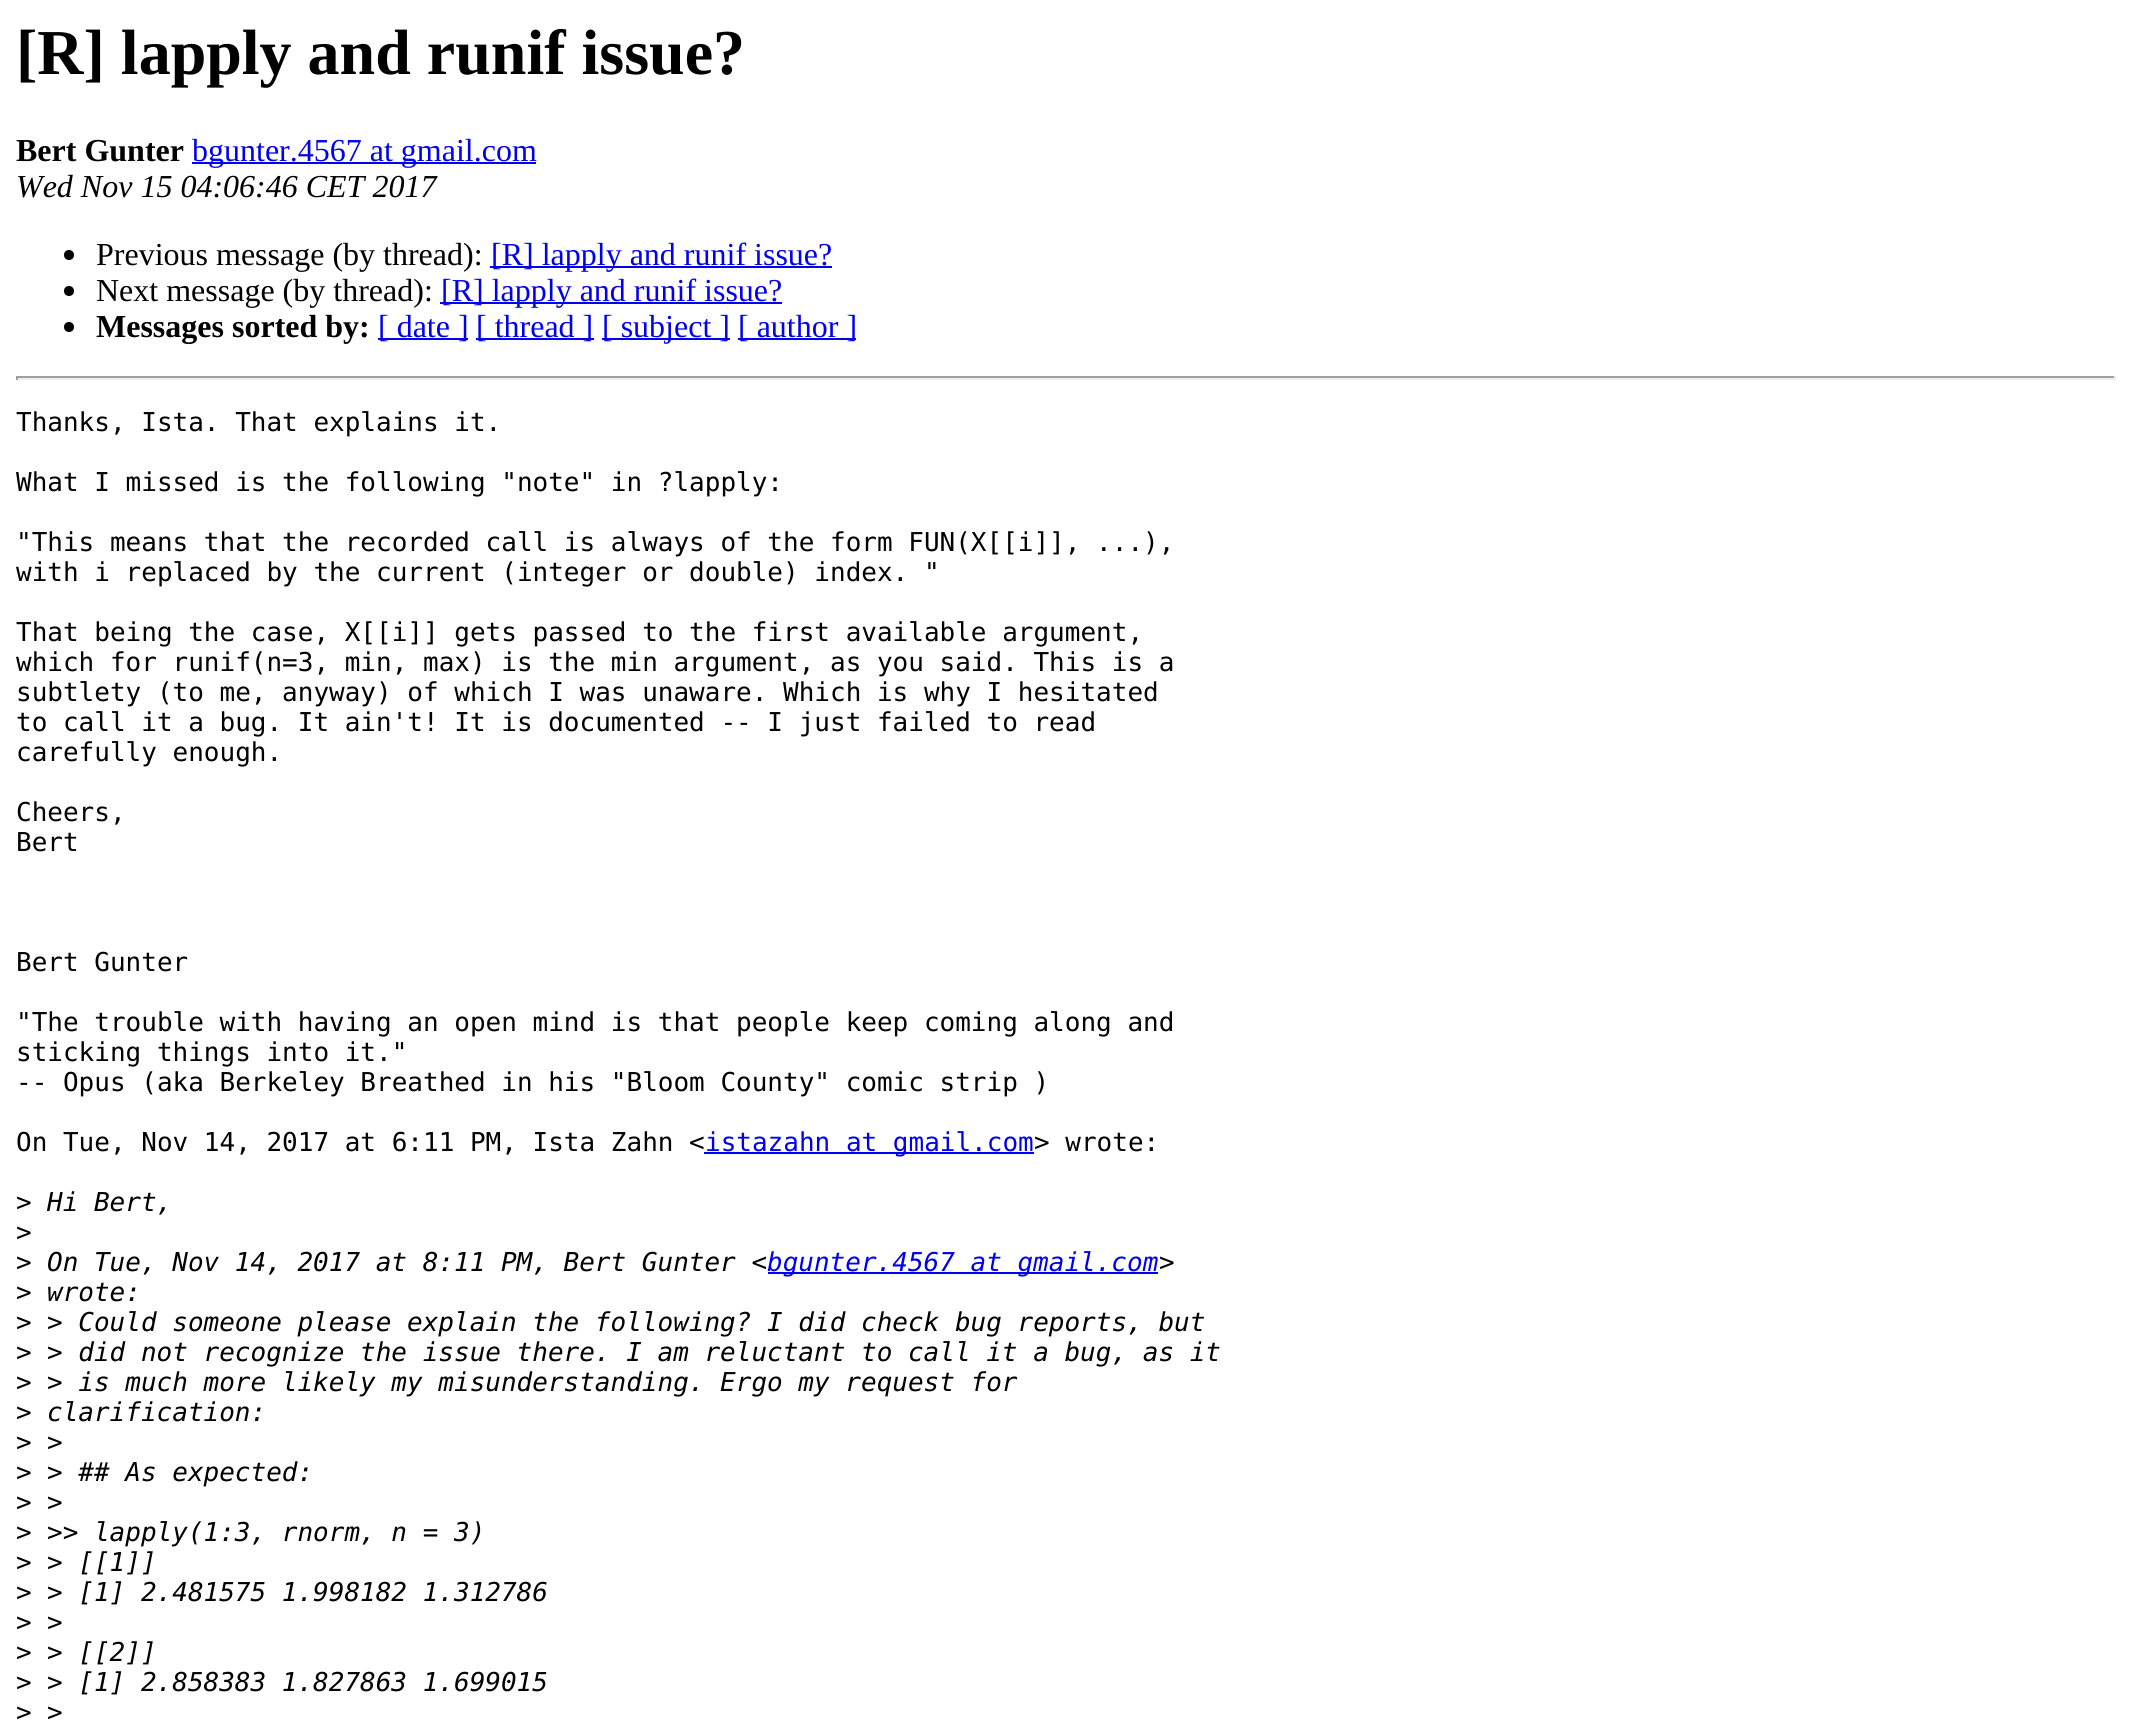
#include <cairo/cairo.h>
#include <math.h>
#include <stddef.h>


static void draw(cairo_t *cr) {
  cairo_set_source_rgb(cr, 1, 1, 1);
  cairo_paint(cr);
  cairo_set_source_rgb(cr, 0, 0, 238 / 255.0);
  cairo_rectangle(cr, 192, 162, 344, 2);
  cairo_fill(cr);
  cairo_set_source_rgb(cr, 0, 0, 0);
  cairo_arc(cr, 69, 255, 5, 0, 2 * M_PI);
  cairo_fill(cr);
  cairo_set_source_rgb(cr, 0, 0, 238 / 255.0);
  cairo_rectangle(cr, 490, 266, 342, 2);
  cairo_fill(cr);
  cairo_set_source_rgb(cr, 0, 0, 0);
  cairo_arc(cr, 69, 291, 5, 0, 2 * M_PI);
  cairo_fill(cr);
  cairo_set_source_rgb(cr, 0, 0, 238 / 255.0);
  cairo_rectangle(cr, 440, 302, 342, 2);
  cairo_fill(cr);
  cairo_set_source_rgb(cr, 0, 0, 0);
  cairo_arc(cr, 69, 327, 5, 0, 2 * M_PI);
  cairo_fill(cr);
  cairo_set_source_rgb(cr, 0, 0, 238 / 255.0);
  cairo_rectangle(cr, 378, 338, 90, 2);
  cairo_fill(cr);
  cairo_rectangle(cr, 476, 338, 118, 2);
  cairo_fill(cr);
  cairo_rectangle(cr, 602, 338, 128, 2);
  cairo_fill(cr);
  cairo_rectangle(cr, 738, 338, 118, 2);
  cairo_fill(cr);
  cairo_set_source_rgb(cr, 159 / 255.0, 159 / 255.0, 159 / 255.0);
  cairo_rectangle(cr, 16, 376, 2100, 2);
  cairo_fill(cr);
  cairo_set_source_rgb(cr, 238 / 255.0, 238 / 255.0, 238 / 255.0);
  cairo_rectangle(cr, 2114, 376, 2, 4);
  cairo_fill(cr);
  cairo_rectangle(cr, 16, 378, 2100, 2);
  cairo_fill(cr);
  cairo_set_source_rgb(cr, 159 / 255.0, 159 / 255.0, 159 / 255.0);
  cairo_rectangle(cr, 16, 376, 2, 4);
  cairo_fill(cr);
  cairo_set_source_rgb(cr, 0, 0, 238 / 255.0);
  cairo_rectangle(cr, 704, 1152, 330, 2);
  cairo_fill(cr);
  cairo_rectangle(cr, 768, 1272, 390, 2);
  cairo_fill(cr);
  cairo_select_font_face(cr, "Liberation Serif", CAIRO_FONT_SLANT_NORMAL, CAIRO_FONT_WEIGHT_BOLD);
  cairo_set_font_size(cr, 64);
  cairo_set_source_rgb(cr, 0, 0, 0);
  cairo_move_to(cr, 16, 74);
  cairo_show_text(cr, "[R] lapply and runif issue?");
  cairo_set_font_size(cr, 32);
  cairo_move_to(cr, 16, 161);
  cairo_show_text(cr, "Bert Gunter");
  cairo_select_font_face(cr, "Liberation Serif", CAIRO_FONT_SLANT_NORMAL, CAIRO_FONT_WEIGHT_NORMAL);
  cairo_set_source_rgb(cr, 0, 0, 238 / 255.0);
  cairo_move_to(cr, 192, 161);
  cairo_show_text(cr, "bgunter.4567 at gmail.com");
  cairo_select_font_face(cr, "Liberation Serif", CAIRO_FONT_SLANT_ITALIC, CAIRO_FONT_WEIGHT_NORMAL);
  cairo_set_source_rgb(cr, 0, 0, 0);
  cairo_move_to(cr, 16, 197);
  cairo_show_text(cr, "Wed Nov 15 04:06:46 CET 2017");
  cairo_select_font_face(cr, "Liberation Serif", CAIRO_FONT_SLANT_NORMAL, CAIRO_FONT_WEIGHT_NORMAL);
  cairo_move_to(cr, 96, 265);
  cairo_show_text(cr, "Previous message (by thread):");
  cairo_set_source_rgb(cr, 0, 0, 238 / 255.0);
  cairo_move_to(cr, 491, 265);
  cairo_show_text(cr, "[R] lapply and runif issue?");
  cairo_set_source_rgb(cr, 0, 0, 0);
  cairo_move_to(cr, 96, 301);
  cairo_show_text(cr, "Next message (by thread):");
  cairo_set_source_rgb(cr, 0, 0, 238 / 255.0);
  cairo_move_to(cr, 441, 301);
  cairo_show_text(cr, "[R] lapply and runif issue?");
  cairo_select_font_face(cr, "Liberation Serif", CAIRO_FONT_SLANT_NORMAL, CAIRO_FONT_WEIGHT_BOLD);
  cairo_set_source_rgb(cr, 0, 0, 0);
  cairo_move_to(cr, 96, 337);
  cairo_show_text(cr, "Messages sorted by:");
  cairo_select_font_face(cr, "Liberation Serif", CAIRO_FONT_SLANT_NORMAL, CAIRO_FONT_WEIGHT_NORMAL);
  cairo_set_source_rgb(cr, 0, 0, 238 / 255.0);
  cairo_move_to(cr, 378, 337);
  cairo_show_text(cr, "[ date ]");
  cairo_move_to(cr, 476, 337);
  cairo_show_text(cr, "[ thread ]");
  cairo_move_to(cr, 602, 337);
  cairo_show_text(cr, "[ subject ]");
  cairo_move_to(cr, 738, 337);
  cairo_show_text(cr, "[ author ]");
  cairo_select_font_face(cr, "DejaVu Sans Mono", CAIRO_FONT_SLANT_NORMAL, CAIRO_FONT_WEIGHT_NORMAL);
  cairo_set_font_size(cr, 26);
  cairo_set_source_rgb(cr, 0, 0, 0);
  cairo_move_to(cr, 16, 431);
  cairo_show_text(cr, "Thanks, Ista. That explains it.");
  cairo_move_to(cr, 16, 491);
  cairo_show_text(cr, "What I missed is the following \"note\" in ?lapply:");
  cairo_move_to(cr, 16, 551);
  cairo_show_text(cr, "\"This means that the recorded call is always of the form FUN(X[[i]], ...),");
  cairo_move_to(cr, 16, 581);
  cairo_show_text(cr, "with i replaced by the current (integer or double) index. \"");
  cairo_move_to(cr, 16, 641);
  cairo_show_text(cr, "That being the case, X[[i]] gets passed to the first available argument,");
  cairo_move_to(cr, 16, 671);
  cairo_show_text(cr, "which for runif(n=3, min, max) is the min argument, as you said. This is a");
  cairo_move_to(cr, 16, 701);
  cairo_show_text(cr, "subtlety (to me, anyway) of which I was unaware. Which is why I hesitated");
  cairo_move_to(cr, 16, 731);
  cairo_show_text(cr, "to call it a bug. It ain't! It is documented -- I just failed to read");
  cairo_move_to(cr, 16, 761);
  cairo_show_text(cr, "carefully enough.");
  cairo_move_to(cr, 16, 821);
  cairo_show_text(cr, "Cheers,");
  cairo_move_to(cr, 16, 851);
  cairo_show_text(cr, "Bert");
  cairo_move_to(cr, 16, 971);
  cairo_show_text(cr, "Bert Gunter");
  cairo_move_to(cr, 16, 1031);
  cairo_show_text(cr, "\"The trouble with having an open mind is that people keep coming along and");
  cairo_move_to(cr, 16, 1061);
  cairo_show_text(cr, "sticking things into it.\"");
  cairo_move_to(cr, 16, 1091);
  cairo_show_text(cr, "-- Opus (aka Berkeley Breathed in his \"Bloom County\" comic strip )");
  cairo_move_to(cr, 16, 1151);
  cairo_show_text(cr, "On Tue, Nov 14, 2017 at 6:11 PM, Ista Zahn <");
  cairo_set_source_rgb(cr, 0, 0, 238 / 255.0);
  cairo_move_to(cr, 705, 1151);
  cairo_show_text(cr, "istazahn at gmail.com");
  cairo_set_source_rgb(cr, 0, 0, 0);
  cairo_move_to(cr, 1034, 1151);
  cairo_show_text(cr, "> wrote:");
  cairo_move_to(cr, 16, 1211);
  cairo_show_text(cr, ">");
  cairo_select_font_face(cr, "DejaVu Sans Mono", CAIRO_FONT_SLANT_ITALIC, CAIRO_FONT_WEIGHT_NORMAL);
  cairo_move_to(cr, 47, 1211);
  cairo_show_text(cr, "Hi Bert,");
  cairo_select_font_face(cr, "DejaVu Sans Mono", CAIRO_FONT_SLANT_NORMAL, CAIRO_FONT_WEIGHT_NORMAL);
  cairo_move_to(cr, 16, 1241);
  cairo_show_text(cr, ">");
  cairo_move_to(cr, 16, 1271);
  cairo_show_text(cr, ">");
  cairo_select_font_face(cr, "DejaVu Sans Mono", CAIRO_FONT_SLANT_ITALIC, CAIRO_FONT_WEIGHT_NORMAL);
  cairo_move_to(cr, 47, 1271);
  cairo_show_text(cr, "On Tue, Nov 14, 2017 at 8:11 PM, Bert Gunter <");
  cairo_set_source_rgb(cr, 0, 0, 238 / 255.0);
  cairo_move_to(cr, 767, 1271);
  cairo_show_text(cr, "bgunter.4567 at gmail.com");
  cairo_set_source_rgb(cr, 0, 0, 0);
  cairo_move_to(cr, 1159, 1271);
  cairo_show_text(cr, ">");
  cairo_select_font_face(cr, "DejaVu Sans Mono", CAIRO_FONT_SLANT_NORMAL, CAIRO_FONT_WEIGHT_NORMAL);
  cairo_move_to(cr, 16, 1301);
  cairo_show_text(cr, ">");
  cairo_select_font_face(cr, "DejaVu Sans Mono", CAIRO_FONT_SLANT_ITALIC, CAIRO_FONT_WEIGHT_NORMAL);
  cairo_move_to(cr, 47, 1301);
  cairo_show_text(cr, "wrote:");
  cairo_select_font_face(cr, "DejaVu Sans Mono", CAIRO_FONT_SLANT_NORMAL, CAIRO_FONT_WEIGHT_NORMAL);
  cairo_move_to(cr, 16, 1331);
  cairo_show_text(cr, ">");
  cairo_select_font_face(cr, "DejaVu Sans Mono", CAIRO_FONT_SLANT_ITALIC, CAIRO_FONT_WEIGHT_NORMAL);
  cairo_move_to(cr, 47, 1331);
  cairo_show_text(cr, "> Could someone please explain the following? I did check bug reports, but");
  cairo_select_font_face(cr, "DejaVu Sans Mono", CAIRO_FONT_SLANT_NORMAL, CAIRO_FONT_WEIGHT_NORMAL);
  cairo_move_to(cr, 16, 1361);
  cairo_show_text(cr, ">");
  cairo_select_font_face(cr, "DejaVu Sans Mono", CAIRO_FONT_SLANT_ITALIC, CAIRO_FONT_WEIGHT_NORMAL);
  cairo_move_to(cr, 47, 1361);
  cairo_show_text(cr, "> did not recognize the issue there. I am reluctant to call it a bug, as it");
  cairo_select_font_face(cr, "DejaVu Sans Mono", CAIRO_FONT_SLANT_NORMAL, CAIRO_FONT_WEIGHT_NORMAL);
  cairo_move_to(cr, 16, 1391);
  cairo_show_text(cr, ">");
  cairo_select_font_face(cr, "DejaVu Sans Mono", CAIRO_FONT_SLANT_ITALIC, CAIRO_FONT_WEIGHT_NORMAL);
  cairo_move_to(cr, 47, 1391);
  cairo_show_text(cr, "> is much more likely my misunderstanding. Ergo my request for");
  cairo_select_font_face(cr, "DejaVu Sans Mono", CAIRO_FONT_SLANT_NORMAL, CAIRO_FONT_WEIGHT_NORMAL);
  cairo_move_to(cr, 16, 1421);
  cairo_show_text(cr, ">");
  cairo_select_font_face(cr, "DejaVu Sans Mono", CAIRO_FONT_SLANT_ITALIC, CAIRO_FONT_WEIGHT_NORMAL);
  cairo_move_to(cr, 47, 1421);
  cairo_show_text(cr, "clarification:");
  cairo_select_font_face(cr, "DejaVu Sans Mono", CAIRO_FONT_SLANT_NORMAL, CAIRO_FONT_WEIGHT_NORMAL);
  cairo_move_to(cr, 16, 1451);
  cairo_show_text(cr, ">");
  cairo_select_font_face(cr, "DejaVu Sans Mono", CAIRO_FONT_SLANT_ITALIC, CAIRO_FONT_WEIGHT_NORMAL);
  cairo_move_to(cr, 47, 1451);
  cairo_show_text(cr, ">");
  cairo_select_font_face(cr, "DejaVu Sans Mono", CAIRO_FONT_SLANT_NORMAL, CAIRO_FONT_WEIGHT_NORMAL);
  cairo_move_to(cr, 16, 1481);
  cairo_show_text(cr, ">");
  cairo_select_font_face(cr, "DejaVu Sans Mono", CAIRO_FONT_SLANT_ITALIC, CAIRO_FONT_WEIGHT_NORMAL);
  cairo_move_to(cr, 47, 1481);
  cairo_show_text(cr, "> ## As expected:");
  cairo_select_font_face(cr, "DejaVu Sans Mono", CAIRO_FONT_SLANT_NORMAL, CAIRO_FONT_WEIGHT_NORMAL);
  cairo_move_to(cr, 16, 1511);
  cairo_show_text(cr, ">");
  cairo_select_font_face(cr, "DejaVu Sans Mono", CAIRO_FONT_SLANT_ITALIC, CAIRO_FONT_WEIGHT_NORMAL);
  cairo_move_to(cr, 47, 1511);
  cairo_show_text(cr, ">");
  cairo_select_font_face(cr, "DejaVu Sans Mono", CAIRO_FONT_SLANT_NORMAL, CAIRO_FONT_WEIGHT_NORMAL);
  cairo_move_to(cr, 16, 1541);
  cairo_show_text(cr, ">");
  cairo_select_font_face(cr, "DejaVu Sans Mono", CAIRO_FONT_SLANT_ITALIC, CAIRO_FONT_WEIGHT_NORMAL);
  cairo_move_to(cr, 47, 1541);
  cairo_show_text(cr, ">> lapply(1:3, rnorm, n = 3)");
  cairo_select_font_face(cr, "DejaVu Sans Mono", CAIRO_FONT_SLANT_NORMAL, CAIRO_FONT_WEIGHT_NORMAL);
  cairo_move_to(cr, 16, 1571);
  cairo_show_text(cr, ">");
  cairo_select_font_face(cr, "DejaVu Sans Mono", CAIRO_FONT_SLANT_ITALIC, CAIRO_FONT_WEIGHT_NORMAL);
  cairo_move_to(cr, 47, 1571);
  cairo_show_text(cr, "> [[1]]");
  cairo_select_font_face(cr, "DejaVu Sans Mono", CAIRO_FONT_SLANT_NORMAL, CAIRO_FONT_WEIGHT_NORMAL);
  cairo_move_to(cr, 16, 1601);
  cairo_show_text(cr, ">");
  cairo_select_font_face(cr, "DejaVu Sans Mono", CAIRO_FONT_SLANT_ITALIC, CAIRO_FONT_WEIGHT_NORMAL);
  cairo_move_to(cr, 47, 1601);
  cairo_show_text(cr, "> [1] 2.481575 1.998182 1.312786");
  cairo_select_font_face(cr, "DejaVu Sans Mono", CAIRO_FONT_SLANT_NORMAL, CAIRO_FONT_WEIGHT_NORMAL);
  cairo_move_to(cr, 16, 1631);
  cairo_show_text(cr, ">");
  cairo_select_font_face(cr, "DejaVu Sans Mono", CAIRO_FONT_SLANT_ITALIC, CAIRO_FONT_WEIGHT_NORMAL);
  cairo_move_to(cr, 47, 1631);
  cairo_show_text(cr, ">");
  cairo_select_font_face(cr, "DejaVu Sans Mono", CAIRO_FONT_SLANT_NORMAL, CAIRO_FONT_WEIGHT_NORMAL);
  cairo_move_to(cr, 16, 1661);
  cairo_show_text(cr, ">");
  cairo_select_font_face(cr, "DejaVu Sans Mono", CAIRO_FONT_SLANT_ITALIC, CAIRO_FONT_WEIGHT_NORMAL);
  cairo_move_to(cr, 47, 1661);
  cairo_show_text(cr, "> [[2]]");
  cairo_select_font_face(cr, "DejaVu Sans Mono", CAIRO_FONT_SLANT_NORMAL, CAIRO_FONT_WEIGHT_NORMAL);
  cairo_move_to(cr, 16, 1691);
  cairo_show_text(cr, ">");
  cairo_select_font_face(cr, "DejaVu Sans Mono", CAIRO_FONT_SLANT_ITALIC, CAIRO_FONT_WEIGHT_NORMAL);
  cairo_move_to(cr, 47, 1691);
  cairo_show_text(cr, "> [1] 2.858383 1.827863 1.699015");
  cairo_select_font_face(cr, "DejaVu Sans Mono", CAIRO_FONT_SLANT_NORMAL, CAIRO_FONT_WEIGHT_NORMAL);
  cairo_move_to(cr, 16, 1721);
  cairo_show_text(cr, ">");
  cairo_select_font_face(cr, "DejaVu Sans Mono", CAIRO_FONT_SLANT_ITALIC, CAIRO_FONT_WEIGHT_NORMAL);
  cairo_move_to(cr, 47, 1721);
  cairo_show_text(cr, ">");
}

int main(void) {
  cairo_surface_t *surface = cairo_image_surface_create(CAIRO_FORMAT_RGB24, 2132, 1724);
  cairo_t *cr = cairo_create(surface);
  cairo_font_options_t *options = cairo_font_options_create();
  cairo_font_options_set_hint_metrics(options, CAIRO_HINT_METRICS_OFF);
  cairo_font_options_set_hint_style(options, CAIRO_HINT_STYLE_NONE);
  cairo_set_font_options(cr, options);
  cairo_set_miter_limit(cr, 4);
  draw(cr);
  cairo_surface_write_to_png(surface, "out.png");
  cairo_font_options_destroy(options);
  cairo_destroy(cr);
  cairo_surface_destroy(surface);
  return 0;
}
